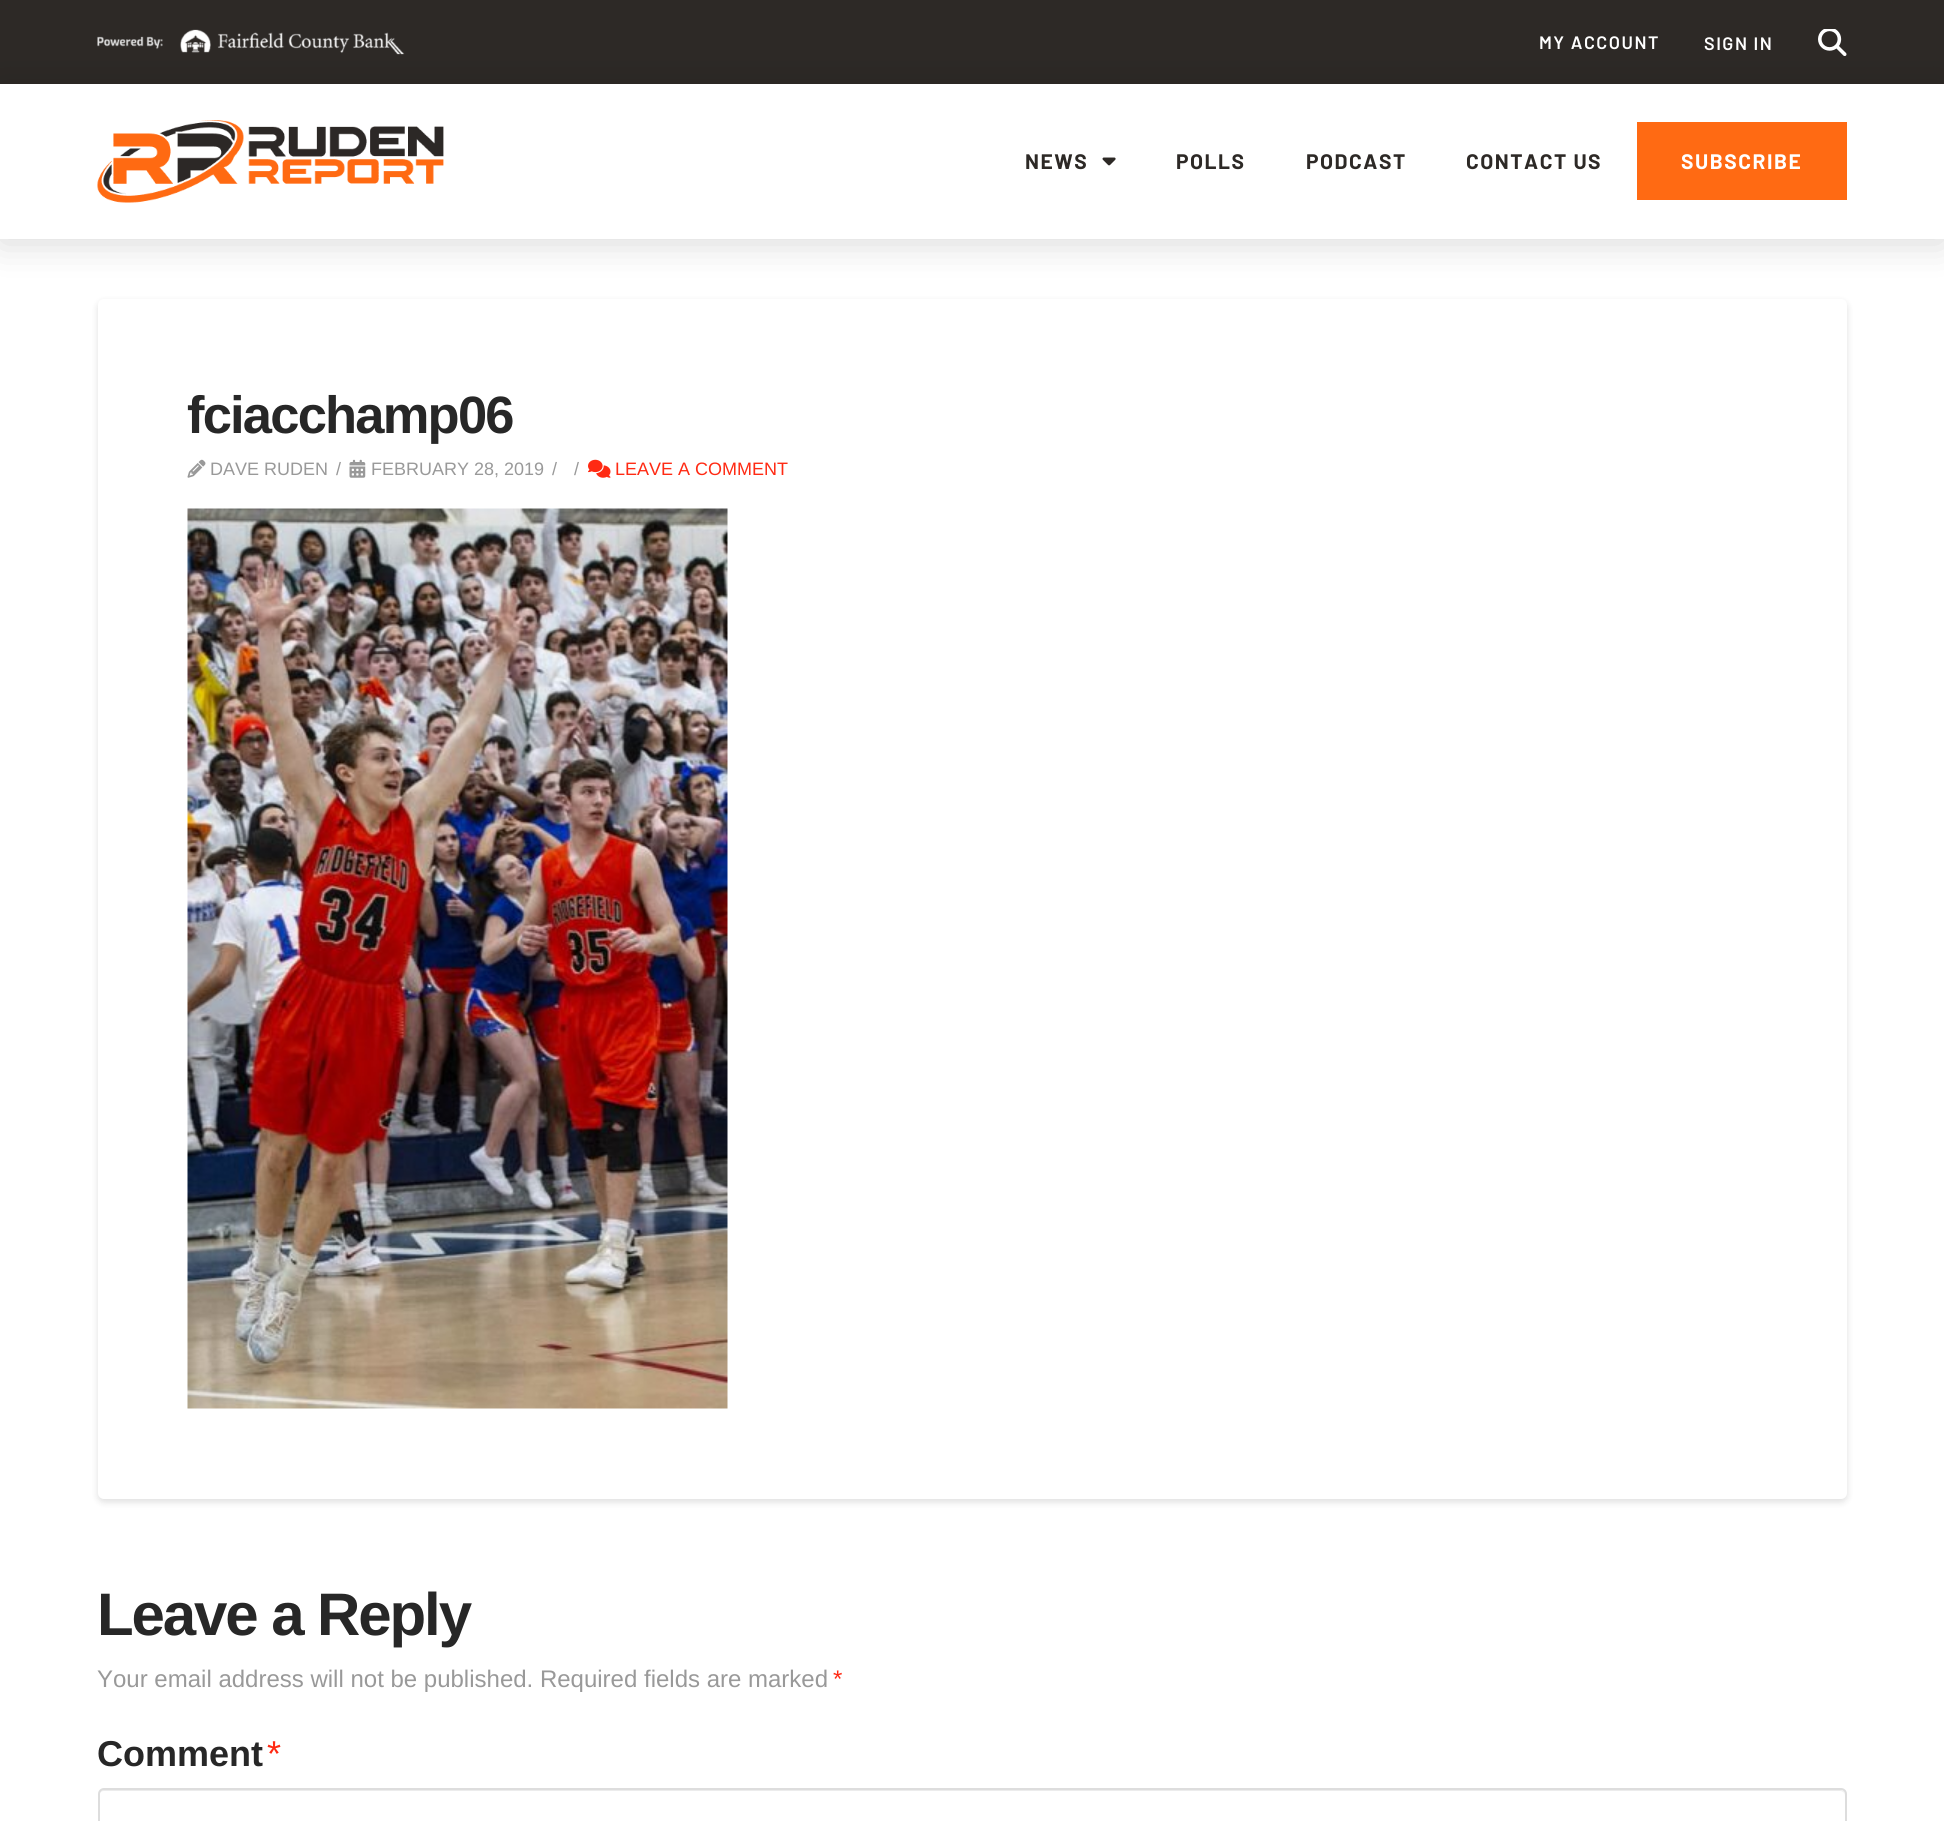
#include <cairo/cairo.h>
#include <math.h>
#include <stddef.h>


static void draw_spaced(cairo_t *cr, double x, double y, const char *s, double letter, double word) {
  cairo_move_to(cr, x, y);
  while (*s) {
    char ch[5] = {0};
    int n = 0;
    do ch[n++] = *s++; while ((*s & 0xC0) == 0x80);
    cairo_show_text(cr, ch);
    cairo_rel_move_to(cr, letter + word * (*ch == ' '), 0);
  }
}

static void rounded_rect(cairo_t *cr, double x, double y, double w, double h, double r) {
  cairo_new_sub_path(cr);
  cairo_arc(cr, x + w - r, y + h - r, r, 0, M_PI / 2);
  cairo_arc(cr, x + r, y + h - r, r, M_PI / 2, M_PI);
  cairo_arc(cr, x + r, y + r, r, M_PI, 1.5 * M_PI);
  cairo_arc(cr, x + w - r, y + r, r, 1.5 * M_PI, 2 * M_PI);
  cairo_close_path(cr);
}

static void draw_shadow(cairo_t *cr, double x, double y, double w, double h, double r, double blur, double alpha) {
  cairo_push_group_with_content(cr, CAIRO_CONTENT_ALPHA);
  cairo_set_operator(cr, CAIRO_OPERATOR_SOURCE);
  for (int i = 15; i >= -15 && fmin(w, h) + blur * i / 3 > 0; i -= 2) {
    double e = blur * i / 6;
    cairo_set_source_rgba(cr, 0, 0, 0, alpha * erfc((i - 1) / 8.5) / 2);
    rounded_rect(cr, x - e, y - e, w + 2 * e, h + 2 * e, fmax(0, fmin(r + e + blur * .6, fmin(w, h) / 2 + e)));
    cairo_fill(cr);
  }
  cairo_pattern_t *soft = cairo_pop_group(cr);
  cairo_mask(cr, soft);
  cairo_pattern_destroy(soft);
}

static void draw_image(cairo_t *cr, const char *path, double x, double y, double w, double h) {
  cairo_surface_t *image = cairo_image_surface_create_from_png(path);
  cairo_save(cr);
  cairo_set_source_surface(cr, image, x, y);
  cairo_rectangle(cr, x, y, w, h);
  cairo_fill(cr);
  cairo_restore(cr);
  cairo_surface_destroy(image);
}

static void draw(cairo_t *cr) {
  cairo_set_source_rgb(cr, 1, 1, 1);
  cairo_paint(cr);
  cairo_set_source_rgb(cr, 45 / 255.0, 41 / 255.0, 38 / 255.0);
  cairo_rectangle(cr, 0, 0, 1944, 84);
  cairo_fill(cr);
  draw_image(cr, "images/1.png", 97, 29, 308, 26);
  draw_image(cr, "images/2.png", 1818, 29, 29, 27);
  cairo_set_source_rgb(cr, 0, 0, 0);
  draw_shadow(cr, 98, 302, 1749, 1200, 6, 3.5, 0.13);
  cairo_set_source_rgb(cr, 1, 1, 1);
  rounded_rect(cr, 98, 299, 1749, 1200, 6);
  cairo_fill(cr);
  cairo_set_source_rgb(cr, 0, 0, 0);
  draw_shadow(cr, 0, 89, 1944, 154, 0, 19, 0.15);
  cairo_set_source_rgb(cr, 1, 1, 1);
  cairo_rectangle(cr, 0, 84, 1944, 155);
  cairo_fill(cr);
  draw_image(cr, "images/3.png", 97, 120, 347, 83);
  draw_image(cr, "images/4.png", 1102, 157, 14, 9);
  cairo_set_source_rgb(cr, 1, 106 / 255.0, 19 / 255.0);
  cairo_rectangle(cr, 1637, 122, 210, 78);
  cairo_fill(cr);
  draw_image(cr, "images/5.png", 187, 459, 19, 19);
  draw_image(cr, "images/6.png", 349, 459, 17, 19);
  draw_image(cr, "images/7.png", 588, 459, 23, 19);
  draw_image(cr, "images/8.png", 187, 508, 541, 901);
  cairo_set_source_rgb(cr, 236 / 255.0, 236 / 255.0, 236 / 255.0);
  cairo_new_path(cr);
  cairo_move_to(cr, 104, 1791);
  cairo_line_to(cr, 1840, 1791);
  cairo_curve_to(cr, 1843, 1791, 1845, 1793, 1845, 1796);
  cairo_line_to(cr, 1845, 1795);
  cairo_curve_to(cr, 1845, 1792, 1843, 1790, 1840, 1790);
  cairo_line_to(cr, 104, 1790);
  cairo_curve_to(cr, 101, 1790, 99, 1792, 99, 1795);
  cairo_line_to(cr, 99, 1796);
  cairo_curve_to(cr, 99, 1793, 101, 1791, 104, 1791);
  cairo_close_path(cr);
  cairo_fill(cr);
  rounded_rect(cr, 99, 1789, 1747, 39, 5);
  cairo_set_source_rgb(cr, 221 / 255.0, 221 / 255.0, 221 / 255.0);
  cairo_stroke(cr);
  cairo_select_font_face(cr, "Barlow SemiBold", CAIRO_FONT_SLANT_NORMAL, CAIRO_FONT_WEIGHT_NORMAL);
  cairo_set_font_size(cr, 18);
  cairo_set_source_rgb(cr, 1, 1, 1);
  draw_spaced(cr, 1539, 49, "MY ACCOUNT", 1.5, 0);
  draw_spaced(cr, 1704, 50, "SIGN IN", 1.5, 0);
  cairo_select_font_face(cr, "Barlow", CAIRO_FONT_SLANT_NORMAL, CAIRO_FONT_WEIGHT_BOLD);
  cairo_set_font_size(cr, 21);
  cairo_set_source_rgb(cr, 45 / 255.0, 41 / 255.0, 38 / 255.0);
  draw_spaced(cr, 1025, 169, "NEWS", 1.5, 0);
  draw_spaced(cr, 1176, 169, "POLLS", 1.5, 0);
  draw_spaced(cr, 1306, 169, "PODCAST", 1.5, 0);
  draw_spaced(cr, 1466, 169, "CONTACT US", 1.5, 0);
  cairo_set_source_rgb(cr, 1, 1, 1);
  draw_spaced(cr, 1681, 169, "SUBSCRIBE", 1.5, 0);
  cairo_select_font_face(cr, "Liberation Sans", CAIRO_FONT_SLANT_NORMAL, CAIRO_FONT_WEIGHT_BOLD);
  cairo_set_font_size(cr, 52.5);
  cairo_set_source_rgb(cr, 39 / 255.0, 39 / 255.0, 39 / 255.0);
  draw_spaced(cr, 187, 433, "fciacchamp06", -1.8, 0);
  cairo_select_font_face(cr, "Liberation Sans", CAIRO_FONT_SLANT_NORMAL, CAIRO_FONT_WEIGHT_NORMAL);
  cairo_set_font_size(cr, 18);
  cairo_set_source_rgb(cr, 153 / 255.0, 153 / 255.0, 153 / 255.0);
  cairo_move_to(cr, 210, 475);
  cairo_show_text(cr, "DAVE RUDEN");
  cairo_move_to(cr, 336, 475);
  cairo_show_text(cr, "/");
  cairo_move_to(cr, 371, 475);
  cairo_show_text(cr, "FEBRUARY 28, 2019");
  cairo_move_to(cr, 552, 475);
  cairo_show_text(cr, "/");
  cairo_move_to(cr, 574, 475);
  cairo_show_text(cr, "/");
  cairo_set_source_rgb(cr, 1, 42 / 255.0, 19 / 255.0);
  cairo_move_to(cr, 615, 475);
  cairo_show_text(cr, "LEAVE A COMMENT");
  cairo_select_font_face(cr, "Liberation Sans", CAIRO_FONT_SLANT_NORMAL, CAIRO_FONT_WEIGHT_BOLD);
  cairo_set_font_size(cr, 60);
  cairo_set_source_rgb(cr, 39 / 255.0, 39 / 255.0, 39 / 255.0);
  draw_spaced(cr, 97, 1635, "Leave a Reply", -2.1, 0);
  cairo_select_font_face(cr, "Liberation Sans", CAIRO_FONT_SLANT_NORMAL, CAIRO_FONT_WEIGHT_NORMAL);
  cairo_set_font_size(cr, 24);
  cairo_set_source_rgb(cr, 153 / 255.0, 153 / 255.0, 153 / 255.0);
  cairo_move_to(cr, 97, 1687);
  cairo_show_text(cr, "Your email address will not be published. Required fields are marked");
  cairo_set_source_rgb(cr, 1, 42 / 255.0, 19 / 255.0);
  cairo_move_to(cr, 833, 1687);
  cairo_show_text(cr, "*");
  cairo_select_font_face(cr, "Liberation Sans", CAIRO_FONT_SLANT_NORMAL, CAIRO_FONT_WEIGHT_BOLD);
  cairo_set_font_size(cr, 36);
  cairo_set_source_rgb(cr, 39 / 255.0, 39 / 255.0, 39 / 255.0);
  cairo_move_to(cr, 97, 1766);
  cairo_show_text(cr, "Comment");
  cairo_select_font_face(cr, "Liberation Sans", CAIRO_FONT_SLANT_NORMAL, CAIRO_FONT_WEIGHT_NORMAL);
  cairo_set_source_rgb(cr, 1, 42 / 255.0, 19 / 255.0);
  cairo_move_to(cr, 267, 1766);
  cairo_show_text(cr, "*");
}

int main(void) {
  cairo_surface_t *surface = cairo_image_surface_create(CAIRO_FORMAT_RGB24, 1944, 1821);
  cairo_t *cr = cairo_create(surface);
  cairo_font_options_t *options = cairo_font_options_create();
  cairo_font_options_set_hint_metrics(options, CAIRO_HINT_METRICS_OFF);
  cairo_font_options_set_hint_style(options, CAIRO_HINT_STYLE_NONE);
  cairo_set_font_options(cr, options);
  cairo_set_miter_limit(cr, 4);
  draw(cr);
  cairo_surface_write_to_png(surface, "out.png");
  cairo_font_options_destroy(options);
  cairo_destroy(cr);
  cairo_surface_destroy(surface);
  return 0;
}
